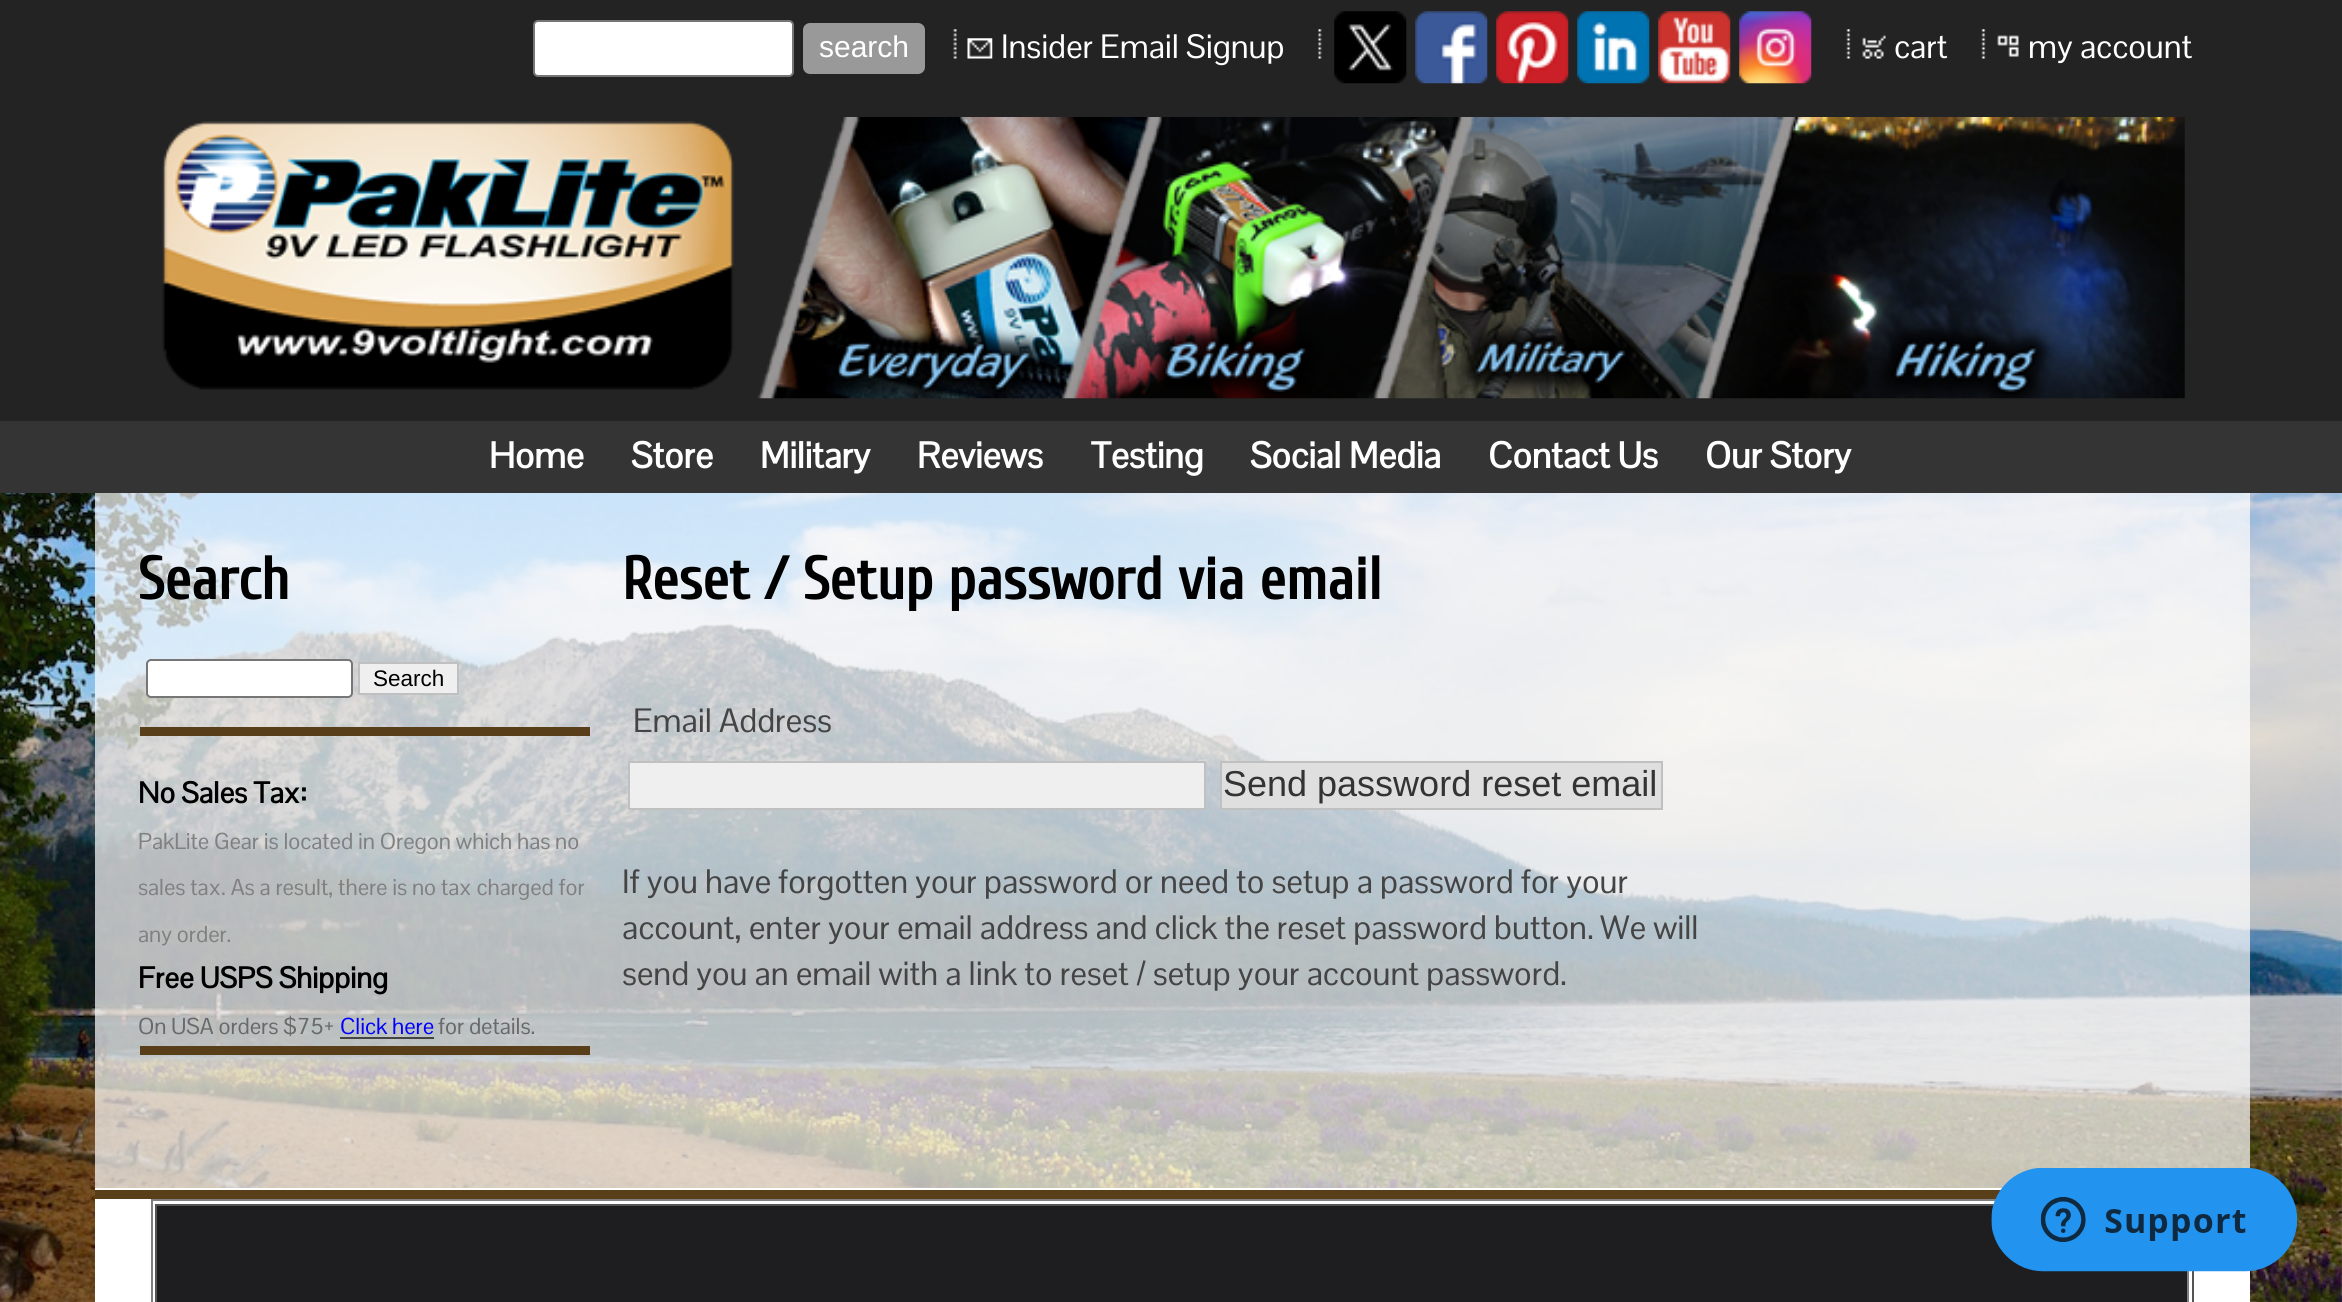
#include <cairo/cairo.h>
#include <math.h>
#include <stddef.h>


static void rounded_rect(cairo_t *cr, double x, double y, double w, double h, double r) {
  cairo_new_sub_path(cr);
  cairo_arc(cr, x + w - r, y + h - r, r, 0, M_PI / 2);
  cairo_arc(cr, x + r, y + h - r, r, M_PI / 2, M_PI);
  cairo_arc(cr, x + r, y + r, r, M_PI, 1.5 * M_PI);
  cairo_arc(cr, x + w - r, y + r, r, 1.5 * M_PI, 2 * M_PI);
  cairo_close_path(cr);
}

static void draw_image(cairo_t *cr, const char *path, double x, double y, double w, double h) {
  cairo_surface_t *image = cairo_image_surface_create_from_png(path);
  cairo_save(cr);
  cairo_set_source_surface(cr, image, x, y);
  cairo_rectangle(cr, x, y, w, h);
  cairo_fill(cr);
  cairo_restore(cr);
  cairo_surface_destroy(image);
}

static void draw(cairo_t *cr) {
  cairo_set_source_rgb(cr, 1, 1, 1);
  cairo_paint(cr);
  draw_image(cr, "images/1.png", 0, 493, 2342, 809);
  cairo_set_source_rgb(cr, 35 / 255.0, 35 / 255.0, 35 / 255.0);
  cairo_rectangle(cr, 0, 0, 2342, 421);
  cairo_fill(cr);
  cairo_set_source_rgb(cr, 1, 1, 1);
  rounded_rect(cr, 534, 21, 259, 55, 4);
  cairo_fill_preserve(cr);
  cairo_set_source_rgb(cr, 118 / 255.0, 118 / 255.0, 118 / 255.0);
  cairo_stroke(cr);
  cairo_set_source_rgb(cr, 153 / 255.0, 153 / 255.0, 153 / 255.0);
  rounded_rect(cr, 804, 24, 120, 49, 6);
  cairo_fill_preserve(cr);
  cairo_stroke(cr);
  draw_image(cr, "images/2.png", 953, 29, 4, 30);
  draw_image(cr, "images/3.png", 967, 38, 26, 21);
  draw_image(cr, "images/4.png", 1318, 29, 4, 30);
  draw_image(cr, "images/5.png", 1334, 11, 73, 73);
  draw_image(cr, "images/6.png", 1415, 11, 73, 73);
  draw_image(cr, "images/7.png", 1496, 11, 73, 73);
  draw_image(cr, "images/8.png", 1577, 11, 73, 73);
  draw_image(cr, "images/9.png", 1658, 11, 73, 73);
  draw_image(cr, "images/10.png", 1739, 11, 73, 73);
  draw_image(cr, "images/11.png", 1846, 29, 5, 30);
  draw_image(cr, "images/12.png", 1862, 35, 24, 24);
  draw_image(cr, "images/11.png", 1981, 29, 5, 30);
  draw_image(cr, "images/13.png", 1997, 35, 22, 22);
  draw_image(cr, "images/14.png", 162, 117, 2023, 282);
  cairo_set_source_rgb(cr, 52 / 255.0, 52 / 255.0, 52 / 255.0);
  cairo_rectangle(cr, 0, 421, 2342, 72);
  cairo_fill(cr);
  cairo_set_source_rgba(cr, 1, 1, 1, 0.7);
  cairo_rectangle(cr, 95, 493, 2155, 695);
  cairo_fill(cr);
  cairo_set_source_rgb(cr, 1, 1, 1);
  rounded_rect(cr, 147, 660, 205, 37, 4);
  cairo_fill_preserve(cr);
  cairo_set_source_rgb(cr, 118 / 255.0, 118 / 255.0, 118 / 255.0);
  cairo_stroke(cr);
  cairo_set_source_rgb(cr, 239 / 255.0, 239 / 255.0, 239 / 255.0);
  cairo_rectangle(cr, 359, 663, 99, 31);
  cairo_fill_preserve(cr);
  cairo_set_source_rgb(cr, 192 / 255.0, 192 / 255.0, 192 / 255.0);
  cairo_stroke(cr);
  cairo_set_source_rgb(cr, 89 / 255.0, 62 / 255.0, 26 / 255.0);
  cairo_rectangle(cr, 140, 727, 450, 9);
  cairo_fill(cr);
  cairo_set_source_rgb(cr, 68 / 255.0, 68 / 255.0, 68 / 255.0);
  cairo_rectangle(cr, 340, 1037, 94, 2);
  cairo_fill(cr);
  cairo_set_source_rgb(cr, 89 / 255.0, 62 / 255.0, 26 / 255.0);
  cairo_rectangle(cr, 140, 1046, 450, 9);
  cairo_fill(cr);
  cairo_set_source_rgb(cr, 239 / 255.0, 239 / 255.0, 239 / 255.0);
  cairo_rectangle(cr, 629, 762, 576, 47);
  cairo_fill_preserve(cr);
  cairo_set_source_rgb(cr, 192 / 255.0, 192 / 255.0, 192 / 255.0);
  cairo_stroke(cr);
  cairo_set_source_rgb(cr, 223 / 255.0, 223 / 255.0, 223 / 255.0);
  cairo_rectangle(cr, 1221, 762, 441, 47);
  cairo_fill_preserve(cr);
  cairo_set_source_rgb(cr, 192 / 255.0, 192 / 255.0, 192 / 255.0);
  cairo_stroke(cr);
  cairo_set_source_rgb(cr, 89 / 255.0, 62 / 255.0, 26 / 255.0);
  cairo_rectangle(cr, 95, 1190, 1906, 9);
  cairo_fill(cr);
  cairo_set_source_rgb(cr, 1, 1, 1);
  cairo_rectangle(cr, 95, 1188, 1907, 2);
  cairo_fill(cr);
  cairo_rectangle(cr, 95, 1199, 2155, 103);
  cairo_fill(cr);
  cairo_set_source_rgb(cr, 128 / 255.0, 128 / 255.0, 128 / 255.0);
  cairo_rectangle(cr, 151, 1199, 1845, 2);
  cairo_fill(cr);
  cairo_set_source_rgb(cr, 85 / 255.0, 85 / 255.0, 85 / 255.0);
  cairo_rectangle(cr, 2192, 1271, 2, 31);
  cairo_fill(cr);
  cairo_set_source_rgb(cr, 128 / 255.0, 128 / 255.0, 128 / 255.0);
  cairo_rectangle(cr, 151, 1199, 2, 103);
  cairo_fill(cr);
  cairo_set_source_rgb(cr, 30 / 255.0, 30 / 255.0, 32 / 255.0);
  cairo_rectangle(cr, 157, 1206, 2030, 96);
  cairo_fill(cr);
  cairo_set_source_rgb(cr, 85 / 255.0, 85 / 255.0, 85 / 255.0);
  cairo_rectangle(cr, 155, 1204, 1839, 2);
  cairo_fill(cr);
  cairo_set_source_rgb(cr, 128 / 255.0, 128 / 255.0, 128 / 255.0);
  cairo_rectangle(cr, 2187, 1271, 2, 31);
  cairo_fill(cr);
  cairo_set_source_rgb(cr, 85 / 255.0, 85 / 255.0, 85 / 255.0);
  cairo_rectangle(cr, 155, 1204, 2, 98);
  cairo_fill(cr);
  draw_image(cr, "images/15.png", 1991, 1168, 306, 104);
  cairo_select_font_face(cr, "Liberation Sans", CAIRO_FONT_SLANT_NORMAL, CAIRO_FONT_WEIGHT_NORMAL);
  cairo_set_font_size(cr, 30);
  cairo_set_source_rgb(cr, 1, 1, 1);
  cairo_move_to(cr, 819, 57);
  cairo_show_text(cr, "search");
  cairo_select_font_face(cr, "Pontano Sans", CAIRO_FONT_SLANT_NORMAL, CAIRO_FONT_WEIGHT_NORMAL);
  cairo_set_font_size(cr, 33);
  cairo_move_to(cr, 1001, 58);
  cairo_show_text(cr, "Insider Email Signup");
  cairo_move_to(cr, 1894, 58);
  cairo_show_text(cr, "cart");
  cairo_move_to(cr, 2028, 58);
  cairo_show_text(cr, "my account");
  cairo_select_font_face(cr, "Pontano Sans", CAIRO_FONT_SLANT_NORMAL, CAIRO_FONT_WEIGHT_BOLD);
  cairo_set_font_size(cr, 36);
  cairo_move_to(cr, 489, 468);
  cairo_show_text(cr, "Home");
  cairo_move_to(cr, 631, 468);
  cairo_show_text(cr, "Store");
  cairo_move_to(cr, 760, 468);
  cairo_show_text(cr, "Military");
  cairo_move_to(cr, 917, 468);
  cairo_show_text(cr, "Reviews");
  cairo_move_to(cr, 1091, 468);
  cairo_show_text(cr, "Testing");
  cairo_move_to(cr, 1250, 468);
  cairo_show_text(cr, "Social Media");
  cairo_move_to(cr, 1488, 468);
  cairo_show_text(cr, "Contact Us");
  cairo_move_to(cr, 1705, 468);
  cairo_show_text(cr, "Our Story");
  cairo_select_font_face(cr, "Cuprum", CAIRO_FONT_SLANT_NORMAL, CAIRO_FONT_WEIGHT_BOLD);
  cairo_set_font_size(cr, 60);
  cairo_set_source_rgb(cr, 0, 0, 0);
  cairo_move_to(cr, 138, 599);
  cairo_show_text(cr, "Search");
  cairo_select_font_face(cr, "Liberation Sans", CAIRO_FONT_SLANT_NORMAL, CAIRO_FONT_WEIGHT_NORMAL);
  cairo_set_font_size(cr, 22.5);
  cairo_move_to(cr, 373, 686);
  cairo_show_text(cr, "Search");
  cairo_select_font_face(cr, "Pontano Sans", CAIRO_FONT_SLANT_NORMAL, CAIRO_FONT_WEIGHT_BOLD);
  cairo_set_font_size(cr, 29.25);
  cairo_move_to(cr, 138, 803);
  cairo_show_text(cr, "No Sales Tax:");
  cairo_select_font_face(cr, "Pontano Sans", CAIRO_FONT_SLANT_NORMAL, CAIRO_FONT_WEIGHT_NORMAL);
  cairo_set_font_size(cr, 22.5);
  cairo_set_source_rgb(cr, 128 / 255.0, 128 / 255.0, 128 / 255.0);
  cairo_move_to(cr, 138, 849);
  cairo_show_text(cr, "PakLite Gear is located in Oregon which has no");
  cairo_move_to(cr, 138, 895);
  cairo_show_text(cr, "sales tax. As a result, there is no tax charged for");
  cairo_move_to(cr, 138, 942);
  cairo_show_text(cr, "any order.");
  cairo_select_font_face(cr, "Pontano Sans", CAIRO_FONT_SLANT_NORMAL, CAIRO_FONT_WEIGHT_BOLD);
  cairo_set_font_size(cr, 29.25);
  cairo_set_source_rgb(cr, 0, 0, 0);
  cairo_move_to(cr, 138, 988);
  cairo_show_text(cr, "Free USPS Shipping");
  cairo_select_font_face(cr, "Pontano Sans", CAIRO_FONT_SLANT_NORMAL, CAIRO_FONT_WEIGHT_NORMAL);
  cairo_set_font_size(cr, 22.5);
  cairo_set_source_rgb(cr, 105 / 255.0, 105 / 255.0, 105 / 255.0);
  cairo_move_to(cr, 138, 1034);
  cairo_show_text(cr, "On USA orders $75+");
  cairo_set_source_rgb(cr, 0, 0, 1);
  cairo_move_to(cr, 340, 1034);
  cairo_show_text(cr, "Click here");
  cairo_set_source_rgb(cr, 105 / 255.0, 105 / 255.0, 105 / 255.0);
  cairo_move_to(cr, 438, 1034);
  cairo_show_text(cr, "for details.");
  cairo_select_font_face(cr, "Cuprum", CAIRO_FONT_SLANT_NORMAL, CAIRO_FONT_WEIGHT_BOLD);
  cairo_set_font_size(cr, 60);
  cairo_set_source_rgb(cr, 0, 0, 0);
  cairo_move_to(cr, 622, 599);
  cairo_show_text(cr, "Reset / Setup password via email");
  cairo_select_font_face(cr, "Pontano Sans", CAIRO_FONT_SLANT_NORMAL, CAIRO_FONT_WEIGHT_NORMAL);
  cairo_set_font_size(cr, 33);
  cairo_set_source_rgb(cr, 68 / 255.0, 68 / 255.0, 68 / 255.0);
  cairo_move_to(cr, 633, 732);
  cairo_show_text(cr, "Email Address");
  cairo_select_font_face(cr, "Liberation Sans", CAIRO_FONT_SLANT_NORMAL, CAIRO_FONT_WEIGHT_NORMAL);
  cairo_set_font_size(cr, 36);
  cairo_set_source_rgb(cr, 51 / 255.0, 51 / 255.0, 51 / 255.0);
  cairo_move_to(cr, 1223, 796);
  cairo_show_text(cr, "Send password reset email");
  cairo_select_font_face(cr, "Pontano Sans", CAIRO_FONT_SLANT_NORMAL, CAIRO_FONT_WEIGHT_NORMAL);
  cairo_set_font_size(cr, 33);
  cairo_set_source_rgb(cr, 68 / 255.0, 68 / 255.0, 68 / 255.0);
  cairo_move_to(cr, 622, 893);
  cairo_show_text(cr, "If you have forgotten your password or need to setup a password for your");
  cairo_move_to(cr, 622, 939);
  cairo_show_text(cr, "account, enter your email address and click the reset password button.");
  cairo_move_to(cr, 1600, 939);
  cairo_show_text(cr, "We will");
  cairo_move_to(cr, 622, 985);
  cairo_show_text(cr, "send you an email with a link to reset / setup your account password.");
}

int main(void) {
  cairo_surface_t *surface = cairo_image_surface_create(CAIRO_FORMAT_RGB24, 2342, 1302);
  cairo_t *cr = cairo_create(surface);
  cairo_font_options_t *options = cairo_font_options_create();
  cairo_font_options_set_hint_metrics(options, CAIRO_HINT_METRICS_OFF);
  cairo_font_options_set_hint_style(options, CAIRO_HINT_STYLE_NONE);
  cairo_set_font_options(cr, options);
  cairo_set_miter_limit(cr, 4);
  draw(cr);
  cairo_surface_write_to_png(surface, "out.png");
  cairo_font_options_destroy(options);
  cairo_destroy(cr);
  cairo_surface_destroy(surface);
  return 0;
}
